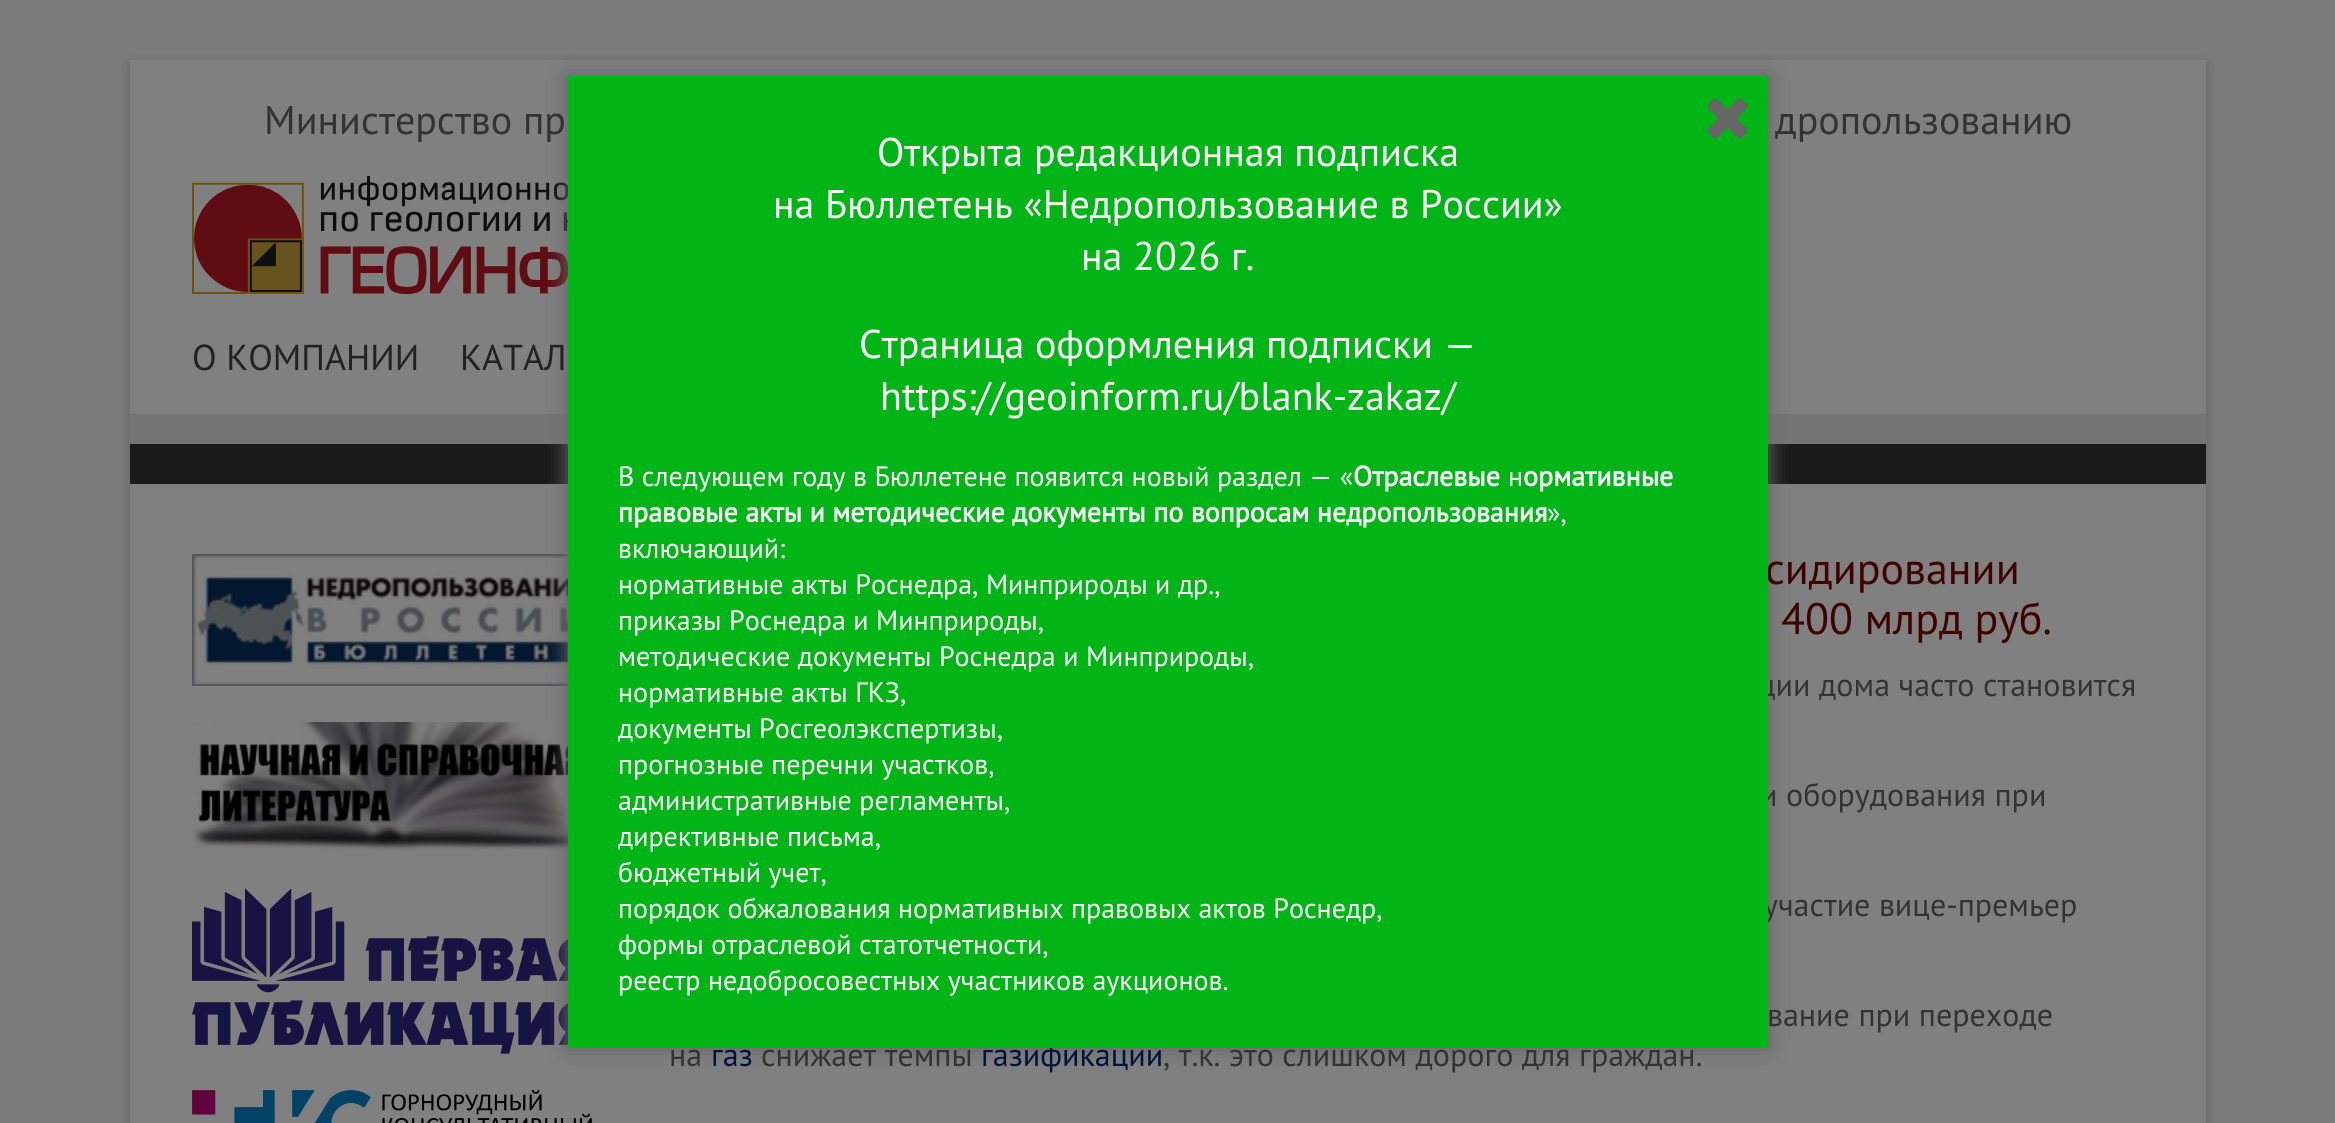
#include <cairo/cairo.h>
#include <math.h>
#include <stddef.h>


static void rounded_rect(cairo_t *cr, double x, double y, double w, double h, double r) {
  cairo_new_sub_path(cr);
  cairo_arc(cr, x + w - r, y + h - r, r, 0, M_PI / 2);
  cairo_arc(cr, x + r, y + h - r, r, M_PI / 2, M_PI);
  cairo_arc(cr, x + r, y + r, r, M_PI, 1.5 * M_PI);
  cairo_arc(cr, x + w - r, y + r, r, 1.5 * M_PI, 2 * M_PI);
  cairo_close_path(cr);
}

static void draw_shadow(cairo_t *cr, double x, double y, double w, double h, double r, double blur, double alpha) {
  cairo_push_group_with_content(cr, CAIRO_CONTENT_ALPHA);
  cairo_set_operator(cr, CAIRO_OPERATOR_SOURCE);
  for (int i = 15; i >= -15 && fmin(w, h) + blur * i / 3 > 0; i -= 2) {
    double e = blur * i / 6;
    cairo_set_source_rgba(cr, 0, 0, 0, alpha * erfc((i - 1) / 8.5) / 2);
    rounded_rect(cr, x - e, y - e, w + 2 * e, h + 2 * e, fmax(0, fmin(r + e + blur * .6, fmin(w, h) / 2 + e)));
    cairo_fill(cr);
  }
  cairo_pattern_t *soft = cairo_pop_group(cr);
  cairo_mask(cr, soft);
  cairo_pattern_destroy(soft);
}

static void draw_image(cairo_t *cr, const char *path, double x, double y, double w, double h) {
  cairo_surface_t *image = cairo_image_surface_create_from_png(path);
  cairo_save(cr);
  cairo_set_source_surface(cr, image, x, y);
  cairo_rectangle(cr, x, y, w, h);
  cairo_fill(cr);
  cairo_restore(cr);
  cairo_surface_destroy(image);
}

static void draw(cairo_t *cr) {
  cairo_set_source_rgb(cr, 123 / 255.0, 123 / 255.0, 123 / 255.0);
  cairo_paint(cr);
  cairo_set_source_rgb(cr, 50 / 255.0, 50 / 255.0, 50 / 255.0);
  draw_shadow(cr, 130, 64, 2076, 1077, 0, 6, 0.3);
  cairo_set_source_rgb(cr, 128 / 255.0, 128 / 255.0, 128 / 255.0);
  cairo_rectangle(cr, 130, 60, 2076, 1063);
  cairo_fill(cr);
  cairo_set_source_rgb(cr, 117 / 255.0, 117 / 255.0, 117 / 255.0);
  cairo_rectangle(cr, 130, 414, 2076, 30);
  cairo_fill(cr);
  draw_image(cr, "images/1.png", 192, 176, 376, 118);
  cairo_set_source_rgb(cr, 26 / 255.0, 26 / 255.0, 26 / 255.0);
  cairo_rectangle(cr, 130, 444, 2076, 40);
  cairo_fill(cr);
  draw_image(cr, "images/3.png", 192, 554, 376, 132);
  draw_image(cr, "images/4.png", 192, 722, 376, 129);
  draw_image(cr, "images/5.png", 192, 888, 376, 166);
  cairo_set_source_rgb(cr, 102 / 255.0, 102 / 255.0, 102 / 255.0);
  draw_shadow(cr, 566, 74, 1204, 976, 0, 10, 1);
  draw_image(cr, "images/6.png", 192, 1090, 400, 33);
  cairo_select_font_face(cr, "PT Sans", CAIRO_FONT_SLANT_NORMAL, CAIRO_FONT_WEIGHT_NORMAL);
  cairo_set_font_size(cr, 40);
  cairo_set_source_rgb(cr, 51 / 255.0, 51 / 255.0, 51 / 255.0);
  cairo_move_to(cr, 264, 134);
  cairo_show_text(cr, "Министерство пр");
  cairo_move_to(cr, 1775, 134);
  cairo_show_text(cr, "дропользованию");
  cairo_set_font_size(cr, 36);
  cairo_set_source_rgb(cr, 34 / 255.0, 34 / 255.0, 34 / 255.0);
  cairo_move_to(cr, 192, 370);
  cairo_show_text(cr, "О КОМПАНИИ");
  cairo_move_to(cr, 460, 370);
  cairo_show_text(cr, "КАТАЛ");
  cairo_set_font_size(cr, 44);
  cairo_set_source_rgb(cr, 64 / 255.0, 0, 0);
  cairo_move_to(cr, 1765, 584);
  cairo_show_text(cr, "сидировании");
  cairo_move_to(cr, 1781, 634);
  cairo_show_text(cr, "400 млрд руб.");
  cairo_set_font_size(cr, 32);
  cairo_set_source_rgb(cr, 51 / 255.0, 51 / 255.0, 51 / 255.0);
  cairo_move_to(cr, 1758, 696);
  cairo_show_text(cr, "ции дома часто становится");
  cairo_move_to(cr, 1760, 806);
  cairo_show_text(cr, "и оборудования при");
  cairo_move_to(cr, 1763, 916);
  cairo_show_text(cr, "участие вице-премьер");
  cairo_move_to(cr, 1767, 1026);
  cairo_show_text(cr, "вание при переходе");
  cairo_move_to(cr, 669, 1066);
  cairo_show_text(cr, "на");
  cairo_set_source_rgb(cr, 0, 19 / 255.0, 60 / 255.0);
  cairo_move_to(cr, 711, 1066);
  cairo_show_text(cr, "газ");
  cairo_set_source_rgb(cr, 51 / 255.0, 51 / 255.0, 51 / 255.0);
  cairo_move_to(cr, 761, 1066);
  cairo_show_text(cr, "снижает темпы");
  cairo_set_source_rgb(cr, 0, 19 / 255.0, 60 / 255.0);
  cairo_move_to(cr, 981, 1066);
  cairo_show_text(cr, "газификации");
  cairo_set_source_rgb(cr, 0, 181 / 255.0, 21 / 255.0);
  cairo_rectangle(cr, 568, 76, 1200, 972);
  cairo_fill(cr);
  draw_image(cr, "images/2.png", 1707, 98, 41, 41);
  cairo_set_font_size(cr, 28);
  cairo_set_source_rgb(cr, 1, 1, 1);
  cairo_move_to(cr, 618, 990);
  cairo_show_text(cr, "реестр недобросовестных участников аукционов.");
  cairo_move_to(cr, 618, 954);
  cairo_show_text(cr, "формы отраслевой статотчетности,");
  cairo_move_to(cr, 618, 918);
  cairo_show_text(cr, "порядок обжалования нормативных правовых актов Роснедр,");
  cairo_move_to(cr, 618, 882);
  cairo_show_text(cr, "бюджетный учет,");
  cairo_move_to(cr, 618, 846);
  cairo_show_text(cr, "директивные письма,");
  cairo_move_to(cr, 618, 810);
  cairo_show_text(cr, "административные регламенты,");
  cairo_move_to(cr, 618, 774);
  cairo_show_text(cr, "прогнозные перечни участков,");
  cairo_move_to(cr, 618, 738);
  cairo_show_text(cr, "документы Росгеолэкспертизы,");
  cairo_move_to(cr, 618, 702);
  cairo_show_text(cr, "нормативные акты ГКЗ,");
  cairo_move_to(cr, 618, 666);
  cairo_show_text(cr, "методические документы Роснедра и Минприроды,");
  cairo_move_to(cr, 618, 630);
  cairo_show_text(cr, "приказы Роснедра и Минприроды,");
  cairo_move_to(cr, 618, 594);
  cairo_show_text(cr, "нормативные акты Роснедра, Минприроды и др.,");
  cairo_move_to(cr, 618, 558);
  cairo_show_text(cr, "включающий:");
  cairo_move_to(cr, 1547, 522);
  cairo_show_text(cr, "»,");
  cairo_select_font_face(cr, "PT Sans", CAIRO_FONT_SLANT_NORMAL, CAIRO_FONT_WEIGHT_BOLD);
  cairo_move_to(cr, 618, 522);
  cairo_show_text(cr, "правовые акты и методические документы по вопросам недропользования");
  cairo_move_to(cr, 1523, 486);
  cairo_show_text(cr, "ормативные");
  cairo_select_font_face(cr, "PT Sans", CAIRO_FONT_SLANT_NORMAL, CAIRO_FONT_WEIGHT_NORMAL);
  cairo_move_to(cr, 1508, 486);
  cairo_show_text(cr, "н");
  cairo_select_font_face(cr, "PT Sans", CAIRO_FONT_SLANT_NORMAL, CAIRO_FONT_WEIGHT_BOLD);
  cairo_move_to(cr, 1353, 486);
  cairo_show_text(cr, "Отраслевые");
  cairo_select_font_face(cr, "PT Sans", CAIRO_FONT_SLANT_NORMAL, CAIRO_FONT_WEIGHT_NORMAL);
  cairo_move_to(cr, 618, 486);
  cairo_show_text(cr, "В следующем году в Бюллетене появится новый раздел — «");
  cairo_set_font_size(cr, 40);
  cairo_move_to(cr, 880, 410);
  cairo_show_text(cr, "https://geoinform.ru/blank-zakaz/");
  cairo_move_to(cr, 859, 358);
  cairo_show_text(cr, "Страница оформления подписки —");
  cairo_move_to(cr, 1081, 270);
  cairo_show_text(cr, "на 2026 г.");
  cairo_move_to(cr, 773, 218);
  cairo_show_text(cr, "на Бюллетень «Недропользование в России»");
  cairo_move_to(cr, 877, 166);
  cairo_show_text(cr, "Открыта редакционная подписка");
  cairo_set_font_size(cr, 32);
  cairo_set_source_rgb(cr, 51 / 255.0, 51 / 255.0, 51 / 255.0);
  cairo_move_to(cr, 1163, 1066);
  cairo_show_text(cr, ", т.к. это слишком дорого для граждан.");
}

int main(void) {
  cairo_surface_t *surface = cairo_image_surface_create(CAIRO_FORMAT_RGB24, 2335, 1123);
  cairo_t *cr = cairo_create(surface);
  cairo_font_options_t *options = cairo_font_options_create();
  cairo_font_options_set_hint_metrics(options, CAIRO_HINT_METRICS_OFF);
  cairo_font_options_set_hint_style(options, CAIRO_HINT_STYLE_NONE);
  cairo_set_font_options(cr, options);
  cairo_set_miter_limit(cr, 4);
  draw(cr);
  cairo_surface_write_to_png(surface, "out.png");
  cairo_font_options_destroy(options);
  cairo_destroy(cr);
  cairo_surface_destroy(surface);
  return 0;
}
